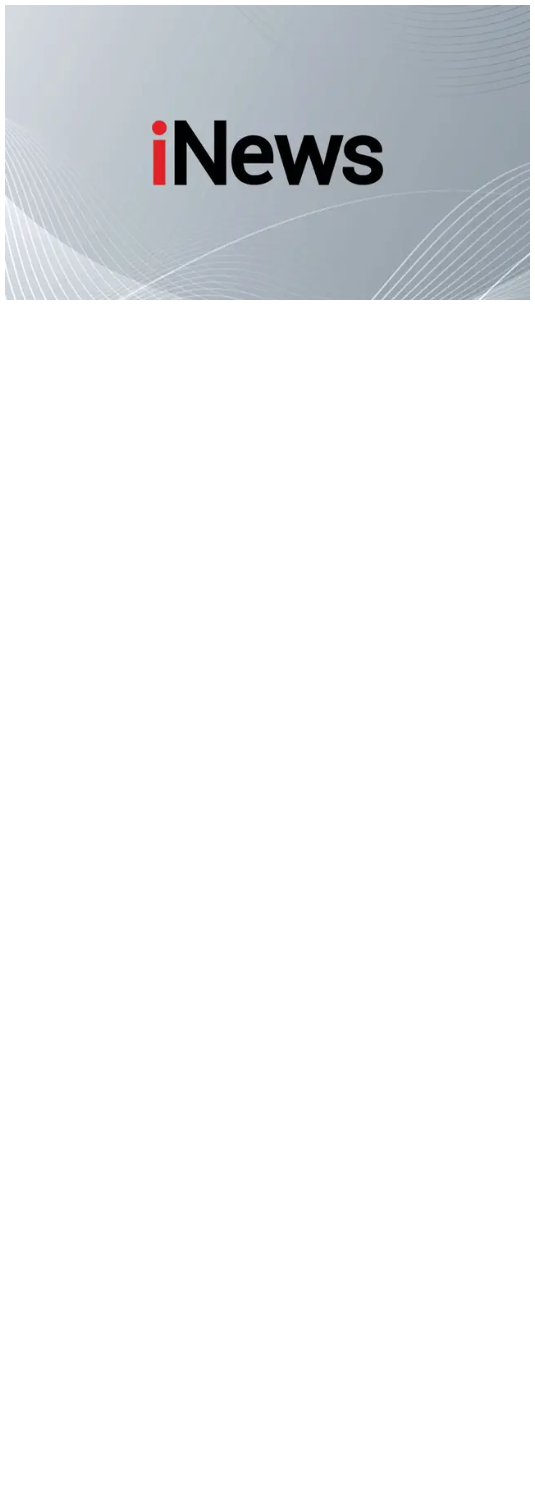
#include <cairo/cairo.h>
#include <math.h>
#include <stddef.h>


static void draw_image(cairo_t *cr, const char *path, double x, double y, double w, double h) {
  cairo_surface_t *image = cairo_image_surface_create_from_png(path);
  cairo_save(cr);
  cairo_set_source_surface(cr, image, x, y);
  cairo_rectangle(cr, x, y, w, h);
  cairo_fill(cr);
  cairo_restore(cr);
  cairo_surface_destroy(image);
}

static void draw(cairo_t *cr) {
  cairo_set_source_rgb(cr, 1, 1, 1);
  cairo_paint(cr);
  draw_image(cr, "images/1.png", 5, 5, 525, 295);
}

int main(void) {
  cairo_surface_t *surface = cairo_image_surface_create(CAIRO_FORMAT_RGB24, 535, 1504);
  cairo_t *cr = cairo_create(surface);
  cairo_font_options_t *options = cairo_font_options_create();
  cairo_font_options_set_hint_metrics(options, CAIRO_HINT_METRICS_OFF);
  cairo_font_options_set_hint_style(options, CAIRO_HINT_STYLE_NONE);
  cairo_set_font_options(cr, options);
  cairo_set_miter_limit(cr, 4);
  draw(cr);
  cairo_surface_write_to_png(surface, "out.png");
  cairo_font_options_destroy(options);
  cairo_destroy(cr);
  cairo_surface_destroy(surface);
  return 0;
}
